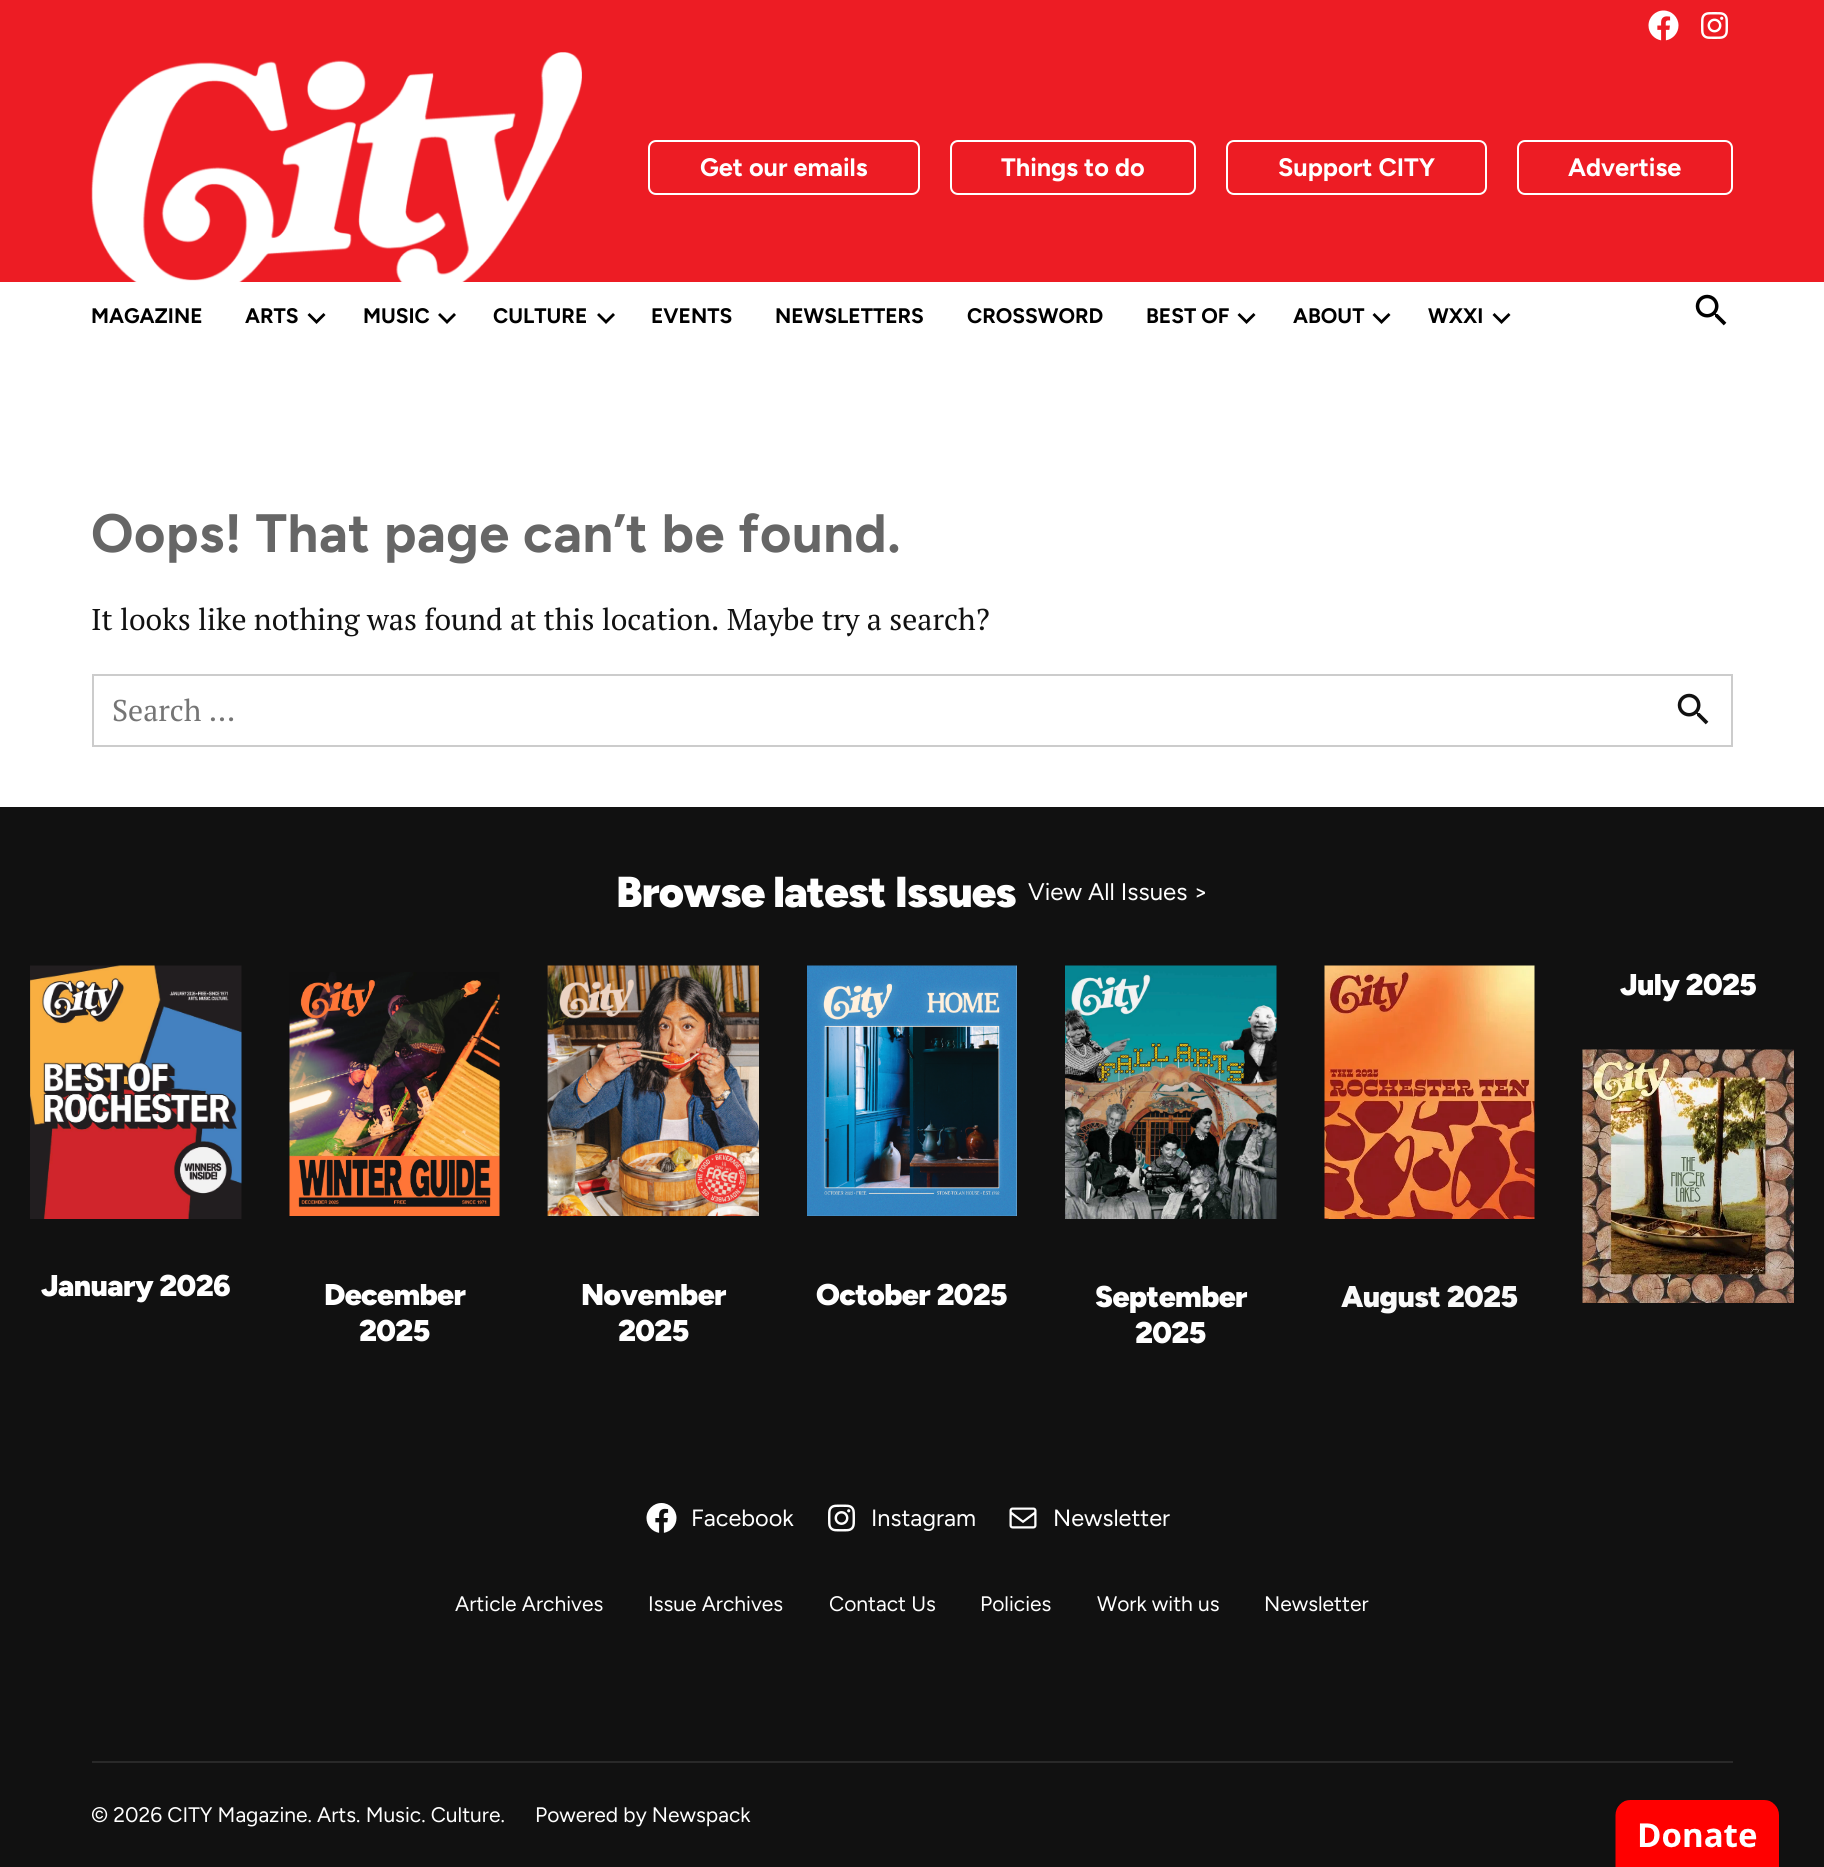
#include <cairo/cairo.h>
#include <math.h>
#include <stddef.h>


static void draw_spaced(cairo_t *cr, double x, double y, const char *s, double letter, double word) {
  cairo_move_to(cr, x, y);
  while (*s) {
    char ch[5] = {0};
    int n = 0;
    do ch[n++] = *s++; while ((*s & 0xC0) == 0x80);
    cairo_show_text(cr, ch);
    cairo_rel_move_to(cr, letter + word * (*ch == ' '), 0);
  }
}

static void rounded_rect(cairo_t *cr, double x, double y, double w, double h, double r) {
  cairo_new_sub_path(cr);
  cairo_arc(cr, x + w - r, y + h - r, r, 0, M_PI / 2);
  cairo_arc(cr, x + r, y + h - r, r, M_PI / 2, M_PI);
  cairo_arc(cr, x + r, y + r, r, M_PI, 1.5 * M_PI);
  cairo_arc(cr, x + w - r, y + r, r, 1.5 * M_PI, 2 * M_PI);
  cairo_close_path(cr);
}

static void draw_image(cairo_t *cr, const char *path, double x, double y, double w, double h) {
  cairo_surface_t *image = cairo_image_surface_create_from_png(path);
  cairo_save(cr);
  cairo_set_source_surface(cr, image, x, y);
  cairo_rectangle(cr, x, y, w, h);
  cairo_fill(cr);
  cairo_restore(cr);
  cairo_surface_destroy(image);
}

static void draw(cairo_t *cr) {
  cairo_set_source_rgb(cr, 1, 1, 1);
  cairo_paint(cr);
  cairo_set_source_rgb(cr, 237 / 255.0, 28 / 255.0, 36 / 255.0);
  cairo_rectangle(cr, 0, 0, 1824, 282);
  cairo_fill(cr);
  draw_image(cr, "images/1.png", 1648, 10, 31, 31);
  draw_image(cr, "images/2.png", 1701, 12, 27, 27);
  draw_image(cr, "images/3.png", 91, 52, 491, 230);
  rounded_rect(cr, 649, 141, 270, 53, 7);
  cairo_set_source_rgb(cr, 1, 1, 1);
  cairo_stroke(cr);
  rounded_rect(cr, 951, 141, 244, 53, 7);
  cairo_stroke(cr);
  rounded_rect(cr, 1227, 141, 259, 53, 7);
  cairo_stroke(cr);
  rounded_rect(cr, 1518, 141, 214, 53, 7);
  cairo_stroke(cr);
  cairo_set_source_rgb(cr, 0, 0, 0);
  cairo_new_path(cr);
  cairo_move_to(cr, 309.5, 313);
  cairo_line_to(cr, 316.5, 320);
  cairo_line_to(cr, 323.5, 313);
  cairo_line_to(cr, 325.5, 315);
  cairo_line_to(cr, 316.5, 324);
  cairo_line_to(cr, 307.5, 315);
  cairo_close_path(cr);
  cairo_fill(cr);
  cairo_new_path(cr);
  cairo_move_to(cr, 440, 313);
  cairo_line_to(cr, 447, 320);
  cairo_line_to(cr, 454, 313);
  cairo_line_to(cr, 456, 315);
  cairo_line_to(cr, 447, 324);
  cairo_line_to(cr, 438, 315);
  cairo_close_path(cr);
  cairo_fill(cr);
  cairo_new_path(cr);
  cairo_move_to(cr, 599, 313);
  cairo_line_to(cr, 606, 320);
  cairo_line_to(cr, 613, 313);
  cairo_line_to(cr, 615, 315);
  cairo_line_to(cr, 606, 324);
  cairo_line_to(cr, 597, 315);
  cairo_close_path(cr);
  cairo_fill(cr);
  cairo_new_path(cr);
  cairo_move_to(cr, 1239.5, 313);
  cairo_line_to(cr, 1246.5, 320);
  cairo_line_to(cr, 1253.5, 313);
  cairo_line_to(cr, 1255.5, 315);
  cairo_line_to(cr, 1246.5, 324);
  cairo_line_to(cr, 1237.5, 315);
  cairo_close_path(cr);
  cairo_fill(cr);
  cairo_new_path(cr);
  cairo_move_to(cr, 1374.5, 313);
  cairo_line_to(cr, 1381.5, 320);
  cairo_line_to(cr, 1388.5, 313);
  cairo_line_to(cr, 1390.5, 315);
  cairo_line_to(cr, 1381.5, 324);
  cairo_line_to(cr, 1372.5, 315);
  cairo_close_path(cr);
  cairo_fill(cr);
  cairo_new_path(cr);
  cairo_move_to(cr, 1494.5, 313);
  cairo_line_to(cr, 1501.5, 320);
  cairo_line_to(cr, 1508.5, 313);
  cairo_line_to(cr, 1510.5, 315);
  cairo_line_to(cr, 1501.5, 324);
  cairo_line_to(cr, 1492.5, 315);
  cairo_close_path(cr);
  cairo_fill(cr);
  draw_image(cr, "images/4.png", 1695, 294, 32, 32);
  cairo_rectangle(cr, 93, 675, 1639, 71);
  cairo_set_source_rgb(cr, 204 / 255.0, 204 / 255.0, 204 / 255.0);
  cairo_stroke(cr);
  draw_image(cr, "images/5.png", 1677, 693, 32, 32);
  cairo_set_source_rgb(cr, 17 / 255.0, 17 / 255.0, 17 / 255.0);
  cairo_rectangle(cr, 0, 807, 1824, 1060);
  cairo_fill(cr);
  draw_image(cr, "images/6.png", 1582, 1049, 212, 254);
  draw_image(cr, "images/7.png", 30, 965, 212, 254);
  draw_image(cr, "images/8.png", 289, 972, 211, 244);
  draw_image(cr, "images/9.png", 547, 965, 212, 251);
  draw_image(cr, "images/10.png", 807, 965, 210, 251);
  draw_image(cr, "images/11.png", 1065, 965, 212, 254);
  draw_image(cr, "images/12.png", 1324, 965, 211, 254);
  draw_image(cr, "images/13.png", 646, 1503, 31, 30);
  draw_image(cr, "images/14.png", 828, 1504, 27, 28);
  draw_image(cr, "images/15.png", 1009, 1507, 28, 22);
  draw_image(cr, "images/16.png", 1615, 1800, 164, 67);
  cairo_set_source_rgb(cr, 41 / 255.0, 41 / 255.0, 41 / 255.0);
  cairo_rectangle(cr, 92, 1761, 1641, 2);
  cairo_fill(cr);
  cairo_select_font_face(cr, "Figtree", CAIRO_FONT_SLANT_NORMAL, CAIRO_FONT_WEIGHT_BOLD);
  cairo_set_font_size(cr, 25.25);
  cairo_set_source_rgb(cr, 1, 1, 1);
  cairo_move_to(cr, 700, 176);
  cairo_show_text(cr, "Get our emails");
  cairo_move_to(cr, 1001, 176);
  cairo_show_text(cr, "Things to do");
  cairo_move_to(cr, 1278, 176);
  cairo_show_text(cr, "Support CITY");
  cairo_move_to(cr, 1568, 176);
  cairo_show_text(cr, "Advertise");
  cairo_set_font_size(cr, 21);
  cairo_set_source_rgb(cr, 0, 0, 0);
  cairo_move_to(cr, 91, 323);
  cairo_show_text(cr, "MAGAZINE");
  cairo_move_to(cr, 245, 323);
  cairo_show_text(cr, "ARTS");
  cairo_move_to(cr, 363, 323);
  cairo_show_text(cr, "MUSIC");
  cairo_move_to(cr, 493, 323);
  cairo_show_text(cr, "CULTURE");
  cairo_move_to(cr, 651, 323);
  cairo_show_text(cr, "EVENTS");
  cairo_move_to(cr, 775, 323);
  cairo_show_text(cr, "NEWSLETTERS");
  cairo_move_to(cr, 967, 323);
  cairo_show_text(cr, "CROSSWORD");
  cairo_move_to(cr, 1146, 323);
  cairo_show_text(cr, "BEST OF");
  cairo_move_to(cr, 1293, 323);
  cairo_show_text(cr, "ABOUT");
  cairo_move_to(cr, 1428, 323);
  cairo_show_text(cr, "WXXI");
  cairo_set_font_size(cr, 54);
  cairo_set_source_rgb(cr, 102 / 255.0, 102 / 255.0, 102 / 255.0);
  draw_spaced(cr, 91, 552, "Oops! That page can’t be found.", 0.55, 0);
  cairo_select_font_face(cr, "PT Serif", CAIRO_FONT_SLANT_NORMAL, CAIRO_FONT_WEIGHT_NORMAL);
  cairo_set_font_size(cr, 30);
  cairo_set_source_rgb(cr, 17 / 255.0, 17 / 255.0, 17 / 255.0);
  cairo_move_to(cr, 91, 630);
  cairo_show_text(cr, "It looks like nothing was found at this location. Maybe try a search?");
  cairo_set_source_rgb(cr, 117 / 255.0, 117 / 255.0, 117 / 255.0);
  cairo_move_to(cr, 112, 721);
  cairo_show_text(cr, "Search …");
  cairo_select_font_face(cr, "Figtree Black", CAIRO_FONT_SLANT_NORMAL, CAIRO_FONT_WEIGHT_NORMAL);
  cairo_set_font_size(cr, 43.25);
  cairo_set_source_rgb(cr, 1, 1, 1);
  draw_spaced(cr, 616, 907, "Browse latest Issues", -0.9, 0);
  cairo_select_font_face(cr, "Figtree", CAIRO_FONT_SLANT_NORMAL, CAIRO_FONT_WEIGHT_NORMAL);
  cairo_set_font_size(cr, 24);
  cairo_move_to(cr, 1028, 900);
  cairo_show_text(cr, "View All Issues >");
  cairo_select_font_face(cr, "Figtree Black", CAIRO_FONT_SLANT_NORMAL, CAIRO_FONT_WEIGHT_NORMAL);
  cairo_set_font_size(cr, 30);
  draw_spaced(cr, 1620, 995, "July 2025", -0.6, 0);
  draw_spaced(cr, 41, 1296, "January 2026", -0.6, 0);
  draw_spaced(cr, 324, 1305, "December", -0.6, 0);
  draw_spaced(cr, 359, 1341, "2025", -0.6, 0);
  draw_spaced(cr, 581, 1305, "November", -0.6, 0);
  draw_spaced(cr, 618, 1341, "2025", -0.6, 0);
  draw_spaced(cr, 816, 1305, "October 2025", -0.6, 0);
  draw_spaced(cr, 1095, 1307, "September", -0.6, 0);
  draw_spaced(cr, 1135, 1343, "2025", -0.6, 0);
  cairo_set_source_rgb(cr, 249 / 255.0, 249 / 255.0, 249 / 255.0);
  draw_spaced(cr, 1341, 1307, "August 2025", -0.6, 0);
  cairo_select_font_face(cr, "Figtree", CAIRO_FONT_SLANT_NORMAL, CAIRO_FONT_WEIGHT_NORMAL);
  cairo_set_font_size(cr, 23.5);
  cairo_set_source_rgb(cr, 1, 1, 1);
  cairo_move_to(cr, 691, 1526);
  cairo_show_text(cr, "Facebook");
  cairo_move_to(cr, 871, 1526);
  cairo_show_text(cr, "Instagram");
  cairo_move_to(cr, 1053, 1526);
  cairo_show_text(cr, "Newsletter");
  cairo_set_font_size(cr, 21);
  cairo_move_to(cr, 455, 1611);
  cairo_show_text(cr, "Article Archives");
  cairo_move_to(cr, 648, 1611);
  cairo_show_text(cr, "Issue Archives");
  cairo_move_to(cr, 829, 1611);
  cairo_show_text(cr, "Contact Us");
  cairo_move_to(cr, 980, 1611);
  cairo_show_text(cr, "Policies");
  cairo_move_to(cr, 1097, 1611);
  cairo_show_text(cr, "Work with us");
  cairo_move_to(cr, 1264, 1611);
  cairo_show_text(cr, "Newsletter");
  cairo_move_to(cr, 91, 1822);
  cairo_show_text(cr, "© 2026 CITY Magazine. Arts. Music. Culture.");
  cairo_move_to(cr, 535, 1822);
  cairo_show_text(cr, "Powered by Newspack");
}

int main(void) {
  cairo_surface_t *surface = cairo_image_surface_create(CAIRO_FORMAT_RGB24, 1824, 1867);
  cairo_t *cr = cairo_create(surface);
  cairo_font_options_t *options = cairo_font_options_create();
  cairo_font_options_set_hint_metrics(options, CAIRO_HINT_METRICS_OFF);
  cairo_font_options_set_hint_style(options, CAIRO_HINT_STYLE_NONE);
  cairo_set_font_options(cr, options);
  cairo_set_miter_limit(cr, 4);
  draw(cr);
  cairo_surface_write_to_png(surface, "out.png");
  cairo_font_options_destroy(options);
  cairo_destroy(cr);
  cairo_surface_destroy(surface);
  return 0;
}
